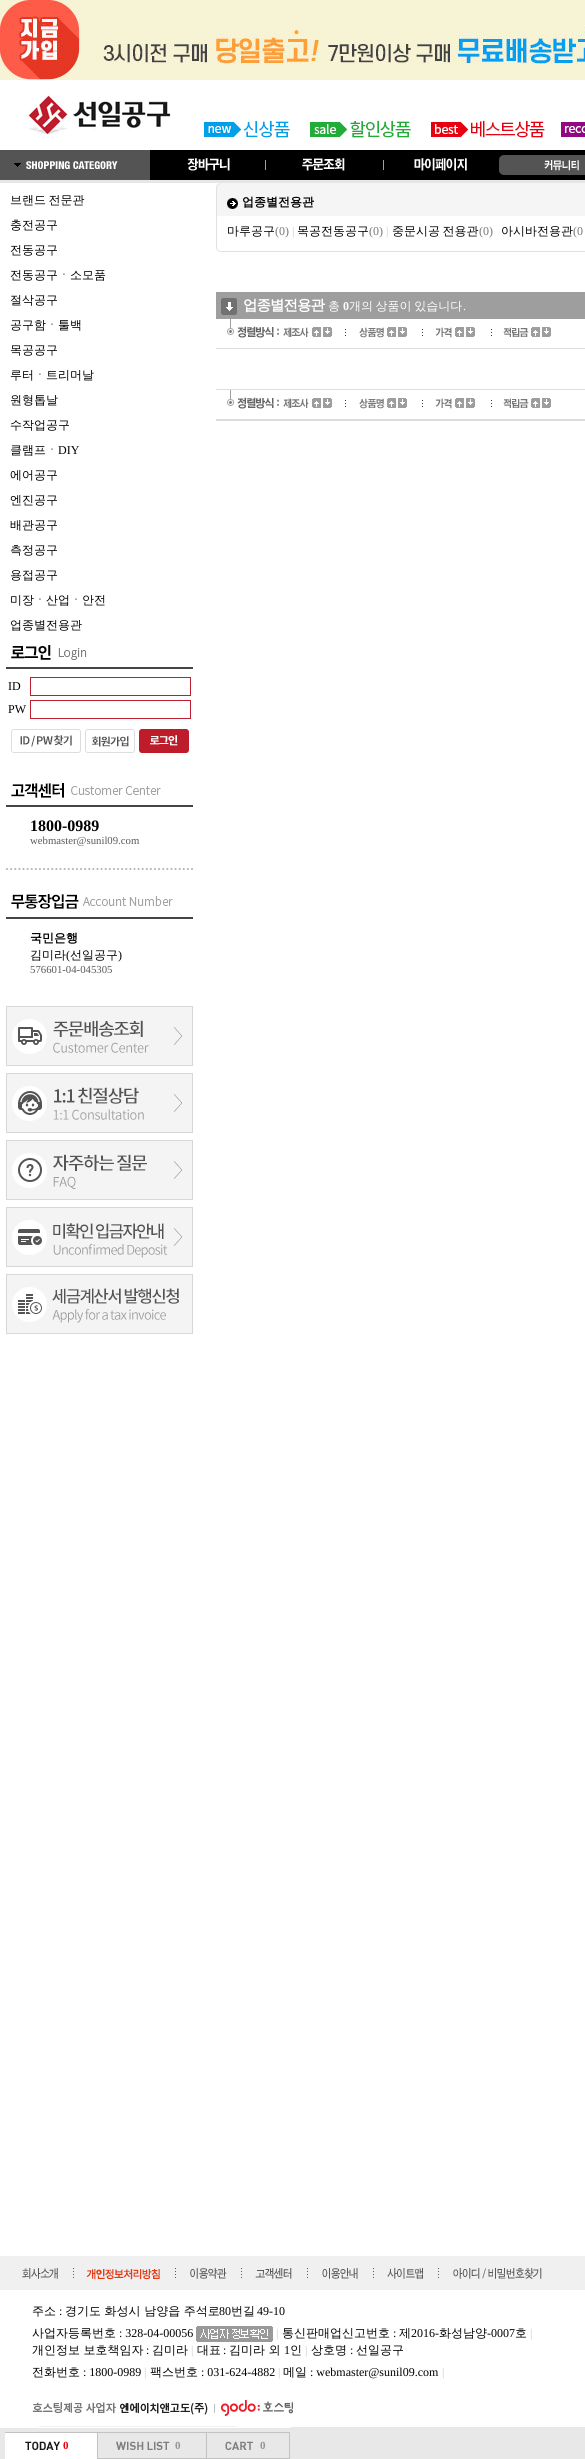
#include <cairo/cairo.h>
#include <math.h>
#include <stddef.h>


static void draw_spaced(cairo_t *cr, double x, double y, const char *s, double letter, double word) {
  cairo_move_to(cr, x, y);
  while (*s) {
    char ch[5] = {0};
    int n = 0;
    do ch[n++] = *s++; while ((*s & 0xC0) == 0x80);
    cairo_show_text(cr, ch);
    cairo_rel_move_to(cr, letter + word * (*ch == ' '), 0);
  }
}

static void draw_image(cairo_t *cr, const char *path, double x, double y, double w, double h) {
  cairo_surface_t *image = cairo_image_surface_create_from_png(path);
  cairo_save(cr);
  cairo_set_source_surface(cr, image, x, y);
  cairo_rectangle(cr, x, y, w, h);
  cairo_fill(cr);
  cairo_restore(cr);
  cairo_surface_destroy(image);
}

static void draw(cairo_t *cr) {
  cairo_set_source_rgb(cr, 1, 1, 1);
  cairo_paint(cr);
  draw_image(cr, "images/1.png", 0, 150, 585, 33);
  draw_image(cr, "images/2.png", 0, 0, 585, 80);
  draw_image(cr, "images/3.png", 27, 93, 144, 42);
  draw_image(cr, "images/4.png", 204, 120, 86, 18);
  draw_image(cr, "images/5.png", 305, 119, 106, 20);
  draw_image(cr, "images/6.png", 431, 120, 114, 18);
  draw_image(cr, "images/7.png", 561, 122, 24, 15);
  draw_image(cr, "images/8.png", 14, 161, 104, 8);
  cairo_set_source_rgb(cr, 0, 0, 0);
  cairo_rectangle(cr, 150, 150, 435, 30);
  cairo_fill(cr);
  draw_image(cr, "images/9.png", 187, 158, 79, 13);
  draw_image(cr, "images/10.png", 302, 158, 82, 13);
  draw_image(cr, "images/11.png", 414, 157, 86, 16);
  draw_image(cr, "images/12.png", 500, 155, 85, 20);
  draw_image(cr, "images/13.png", 6, 645, 187, 24);
  cairo_rectangle(cr, 30.5, 677.5, 160, 18);
  cairo_set_source_rgb(cr, 189 / 255.0, 31 / 255.0, 46 / 255.0);
  cairo_set_line_width(cr, 1);
  cairo_stroke(cr);
  cairo_rectangle(cr, 30.5, 700.5, 160, 18);
  cairo_stroke(cr);
  draw_image(cr, "images/14.png", 11, 729, 70, 24);
  draw_image(cr, "images/15.png", 85, 729, 50, 24);
  draw_image(cr, "images/16.png", 139, 729, 50, 24);
  draw_image(cr, "images/17.png", 6, 783, 187, 24);
  draw_image(cr, "images/18.png", 6, 868, 187, 2);
  draw_image(cr, "images/19.png", 6, 894, 187, 25);
  draw_image(cr, "images/20.png", 6, 1006, 187, 60);
  draw_image(cr, "images/21.png", 6, 1073, 187, 60);
  draw_image(cr, "images/22.png", 6, 1140, 187, 60);
  draw_image(cr, "images/23.png", 6, 1207, 187, 60);
  draw_image(cr, "images/24.png", 6, 1274, 187, 60);
  cairo_set_source_rgb(cr, 245 / 255.0, 245 / 255.0, 245 / 255.0);
  cairo_rectangle(cr, 216, 183, 369, 6);
  cairo_fill(cr);
  draw_image(cr, "images/25.png", 216, 183, 4, 6);
  cairo_rectangle(cr, 217, 189, 368, 27);
  cairo_fill(cr);
  cairo_set_source_rgb(cr, 226 / 255.0, 225 / 255.0, 225 / 255.0);
  cairo_rectangle(cr, 216, 189, 1, 57);
  cairo_fill(cr);
  draw_image(cr, "images/26.png", 227, 198, 11, 11);
  cairo_rectangle(cr, 216, 251, 369, 1);
  cairo_fill(cr);
  draw_image(cr, "images/27.png", 216, 246, 4, 6);
  cairo_set_source_rgb(cr, 158 / 255.0, 158 / 255.0, 158 / 255.0);
  cairo_rectangle(cr, 216, 292, 369, 27);
  cairo_fill(cr);
  draw_image(cr, "images/28.png", 221, 298, 16, 17);
  draw_image(cr, "images/29.png", 227, 319, 82, 19);
  draw_image(cr, "images/30.png", 312, 327, 9, 10);
  draw_image(cr, "images/31.png", 323, 327, 9, 10);
  draw_image(cr, "images/32.png", 345, 327, 39, 11);
  draw_image(cr, "images/30.png", 387, 327, 9, 10);
  draw_image(cr, "images/31.png", 398, 327, 9, 10);
  draw_image(cr, "images/33.png", 422, 327, 30, 11);
  draw_image(cr, "images/30.png", 455, 327, 9, 10);
  draw_image(cr, "images/31.png", 466, 327, 9, 10);
  draw_image(cr, "images/34.png", 491, 327, 38, 10);
  draw_image(cr, "images/30.png", 531, 327, 9, 10);
  draw_image(cr, "images/31.png", 542, 327, 9, 10);
  cairo_set_source_rgb(cr, 221 / 255.0, 221 / 255.0, 221 / 255.0);
  cairo_rectangle(cr, 216, 348, 369, 1);
  cairo_fill(cr);
  cairo_rectangle(cr, 216, 389, 369, 1);
  cairo_fill(cr);
  draw_image(cr, "images/29.png", 227, 390, 82, 19);
  draw_image(cr, "images/30.png", 312, 398, 9, 10);
  draw_image(cr, "images/31.png", 323, 398, 9, 10);
  draw_image(cr, "images/32.png", 345, 398, 39, 11);
  draw_image(cr, "images/30.png", 387, 398, 9, 10);
  draw_image(cr, "images/31.png", 398, 398, 9, 10);
  draw_image(cr, "images/33.png", 422, 398, 30, 11);
  draw_image(cr, "images/30.png", 455, 398, 9, 10);
  draw_image(cr, "images/31.png", 466, 398, 9, 10);
  draw_image(cr, "images/34.png", 491, 398, 38, 10);
  draw_image(cr, "images/30.png", 531, 398, 9, 10);
  draw_image(cr, "images/31.png", 542, 398, 9, 10);
  cairo_rectangle(cr, 216, 419, 369, 2);
  cairo_fill(cr);
  cairo_set_source_rgb(cr, 240 / 255.0, 240 / 255.0, 240 / 255.0);
  cairo_rectangle(cr, 0, 2256, 585, 34);
  cairo_fill(cr);
  draw_image(cr, "images/35.png", 22, 2268, 36, 11);
  draw_image(cr, "images/36.png", 73, 2268, 87, 12);
  draw_image(cr, "images/37.png", 175, 2268, 52, 11);
  draw_image(cr, "images/38.png", 241, 2268, 51, 11);
  draw_image(cr, "images/39.png", 307, 2268, 51, 11);
  draw_image(cr, "images/40.png", 373, 2268, 50, 11);
  draw_image(cr, "images/41.png", 438, 2268, 104, 11);
  draw_image(cr, "images/42.png", 196, 2326, 77, 16);
  draw_image(cr, "images/43.png", 32, 2400, 261, 16);
  draw_image(cr, "images/44.png", 32, 2426, 10, 1);
  cairo_rectangle(cr, 42, 2426, 191, 1);
  cairo_fill(cr);
  draw_image(cr, "images/45.png", 233, 2426, 10, 1);
  cairo_set_source_rgb(cr, 232 / 255.0, 232 / 255.0, 232 / 255.0);
  cairo_rectangle(cr, 0, 2428, 5, 31);
  cairo_fill(cr);
  cairo_rectangle(cr, 290, 2427, 295, 32);
  cairo_fill(cr);
  draw_image(cr, "images/46.png", 5, 2427, 285, 32);
  cairo_select_font_face(cr, "WenQuanYi Zen Hei Medium", CAIRO_FONT_SLANT_NORMAL, CAIRO_FONT_WEIGHT_NORMAL);
  cairo_set_font_size(cr, 12);
  cairo_set_source_rgb(cr, 0, 0, 0);
  draw_spaced(cr, 10, 204, "브랜드 전문관", 0, -1);
  cairo_move_to(cr, 10, 229);
  cairo_show_text(cr, "충전공구");
  cairo_move_to(cr, 10, 254);
  cairo_show_text(cr, "전동공구");
  cairo_move_to(cr, 10, 279);
  cairo_show_text(cr, "전동공구ㆍ소모품");
  cairo_move_to(cr, 10, 304);
  cairo_show_text(cr, "절삭공구");
  cairo_move_to(cr, 10, 329);
  cairo_show_text(cr, "공구함ㆍ툴백");
  cairo_move_to(cr, 10, 354);
  cairo_show_text(cr, "목공공구");
  cairo_move_to(cr, 10, 379);
  cairo_show_text(cr, "루터ㆍ트리머날");
  cairo_move_to(cr, 10, 404);
  cairo_show_text(cr, "원형톱날");
  cairo_move_to(cr, 10, 429);
  cairo_show_text(cr, "수작업공구");
  cairo_move_to(cr, 10, 454);
  cairo_show_text(cr, "클램프ㆍ");
  cairo_select_font_face(cr, "Liberation Serif", CAIRO_FONT_SLANT_NORMAL, CAIRO_FONT_WEIGHT_NORMAL);
  cairo_move_to(cr, 58, 454);
  cairo_show_text(cr, "DIY");
  cairo_select_font_face(cr, "WenQuanYi Zen Hei Medium", CAIRO_FONT_SLANT_NORMAL, CAIRO_FONT_WEIGHT_NORMAL);
  cairo_move_to(cr, 10, 479);
  cairo_show_text(cr, "에어공구");
  cairo_move_to(cr, 10, 504);
  cairo_show_text(cr, "엔진공구");
  cairo_move_to(cr, 10, 529);
  cairo_show_text(cr, "배관공구");
  cairo_move_to(cr, 10, 554);
  cairo_show_text(cr, "측정공구");
  cairo_move_to(cr, 10, 579);
  cairo_show_text(cr, "용접공구");
  cairo_move_to(cr, 10, 604);
  cairo_show_text(cr, "미장ㆍ산업ㆍ안전");
  cairo_move_to(cr, 10, 629);
  cairo_show_text(cr, "업종별전용관");
  cairo_select_font_face(cr, "Liberation Serif", CAIRO_FONT_SLANT_NORMAL, CAIRO_FONT_WEIGHT_NORMAL);
  cairo_move_to(cr, 8, 690);
  cairo_show_text(cr, "ID");
  cairo_move_to(cr, 8, 713);
  cairo_show_text(cr, "PW");
  cairo_select_font_face(cr, "Liberation Serif", CAIRO_FONT_SLANT_NORMAL, CAIRO_FONT_WEIGHT_BOLD);
  cairo_set_font_size(cr, 16);
  cairo_move_to(cr, 30, 831);
  cairo_show_text(cr, "1800-0989");
  cairo_select_font_face(cr, "Liberation Serif", CAIRO_FONT_SLANT_NORMAL, CAIRO_FONT_WEIGHT_NORMAL);
  cairo_set_font_size(cr, 10.75);
  cairo_set_source_rgb(cr, 89 / 255.0, 89 / 255.0, 89 / 255.0);
  cairo_move_to(cr, 30, 844);
  cairo_show_text(cr, "webmaster@sunil09.com");
  cairo_select_font_face(cr, "WenQuanYi Zen Hei", CAIRO_FONT_SLANT_NORMAL, CAIRO_FONT_WEIGHT_BOLD);
  cairo_set_font_size(cr, 12);
  cairo_set_source_rgb(cr, 0, 0, 0);
  cairo_move_to(cr, 30, 942);
  cairo_show_text(cr, "국민은행");
  cairo_select_font_face(cr, "WenQuanYi Zen Hei Medium", CAIRO_FONT_SLANT_NORMAL, CAIRO_FONT_WEIGHT_NORMAL);
  cairo_move_to(cr, 30, 959);
  cairo_show_text(cr, "김미라");
  cairo_select_font_face(cr, "Liberation Serif", CAIRO_FONT_SLANT_NORMAL, CAIRO_FONT_WEIGHT_NORMAL);
  cairo_move_to(cr, 66, 959);
  cairo_show_text(cr, "(");
  cairo_select_font_face(cr, "WenQuanYi Zen Hei Medium", CAIRO_FONT_SLANT_NORMAL, CAIRO_FONT_WEIGHT_NORMAL);
  cairo_move_to(cr, 70, 959);
  cairo_show_text(cr, "선일공구");
  cairo_select_font_face(cr, "Liberation Serif", CAIRO_FONT_SLANT_NORMAL, CAIRO_FONT_WEIGHT_NORMAL);
  cairo_move_to(cr, 118, 959);
  cairo_show_text(cr, ")");
  cairo_set_font_size(cr, 10.75);
  cairo_set_source_rgb(cr, 89 / 255.0, 89 / 255.0, 89 / 255.0);
  cairo_move_to(cr, 30, 973);
  cairo_show_text(cr, "576601-04-045305");
  cairo_select_font_face(cr, "WenQuanYi Zen Hei", CAIRO_FONT_SLANT_NORMAL, CAIRO_FONT_WEIGHT_BOLD);
  cairo_set_font_size(cr, 12);
  cairo_set_source_rgb(cr, 0, 0, 0);
  cairo_move_to(cr, 242, 206);
  cairo_show_text(cr, "업종별전용관");
  cairo_select_font_face(cr, "WenQuanYi Zen Hei Medium", CAIRO_FONT_SLANT_NORMAL, CAIRO_FONT_WEIGHT_NORMAL);
  cairo_move_to(cr, 227, 235);
  cairo_show_text(cr, "마루공구");
  cairo_select_font_face(cr, "Liberation Serif", CAIRO_FONT_SLANT_NORMAL, CAIRO_FONT_WEIGHT_NORMAL);
  cairo_set_source_rgb(cr, 119 / 255.0, 119 / 255.0, 119 / 255.0);
  cairo_move_to(cr, 275, 235);
  cairo_show_text(cr, "(0)");
  cairo_set_source_rgb(cr, 204 / 255.0, 204 / 255.0, 204 / 255.0);
  cairo_move_to(cr, 292, 235);
  cairo_show_text(cr, "|");
  cairo_select_font_face(cr, "WenQuanYi Zen Hei Medium", CAIRO_FONT_SLANT_NORMAL, CAIRO_FONT_WEIGHT_NORMAL);
  cairo_set_source_rgb(cr, 0, 0, 0);
  cairo_move_to(cr, 297, 235);
  cairo_show_text(cr, "목공전동공구");
  cairo_select_font_face(cr, "Liberation Serif", CAIRO_FONT_SLANT_NORMAL, CAIRO_FONT_WEIGHT_NORMAL);
  cairo_set_source_rgb(cr, 119 / 255.0, 119 / 255.0, 119 / 255.0);
  cairo_move_to(cr, 369, 235);
  cairo_show_text(cr, "(0)");
  cairo_set_source_rgb(cr, 204 / 255.0, 204 / 255.0, 204 / 255.0);
  cairo_move_to(cr, 386, 235);
  cairo_show_text(cr, "|");
  cairo_select_font_face(cr, "WenQuanYi Zen Hei Medium", CAIRO_FONT_SLANT_NORMAL, CAIRO_FONT_WEIGHT_NORMAL);
  cairo_set_source_rgb(cr, 0, 0, 0);
  draw_spaced(cr, 392, 235, "중문시공 전용관", 0, -1);
  cairo_select_font_face(cr, "Liberation Serif", CAIRO_FONT_SLANT_NORMAL, CAIRO_FONT_WEIGHT_NORMAL);
  cairo_set_source_rgb(cr, 119 / 255.0, 119 / 255.0, 119 / 255.0);
  cairo_move_to(cr, 479, 235);
  cairo_show_text(cr, "(0)");
  cairo_select_font_face(cr, "WenQuanYi Zen Hei Medium", CAIRO_FONT_SLANT_NORMAL, CAIRO_FONT_WEIGHT_NORMAL);
  cairo_set_source_rgb(cr, 0, 0, 0);
  cairo_move_to(cr, 501, 235);
  cairo_show_text(cr, "아시바전용관");
  cairo_select_font_face(cr, "Liberation Serif", CAIRO_FONT_SLANT_NORMAL, CAIRO_FONT_WEIGHT_NORMAL);
  cairo_set_source_rgb(cr, 119 / 255.0, 119 / 255.0, 119 / 255.0);
  cairo_move_to(cr, 573, 235);
  cairo_show_text(cr, "(0");
  cairo_select_font_face(cr, "WenQuanYi Zen Hei", CAIRO_FONT_SLANT_NORMAL, CAIRO_FONT_WEIGHT_BOLD);
  cairo_set_font_size(cr, 14.5);
  cairo_set_source_rgb(cr, 1, 1, 1);
  draw_spaced(cr, 243, 310, "업종별전용관", -1, 0);
  cairo_select_font_face(cr, "WenQuanYi Zen Hei Medium", CAIRO_FONT_SLANT_NORMAL, CAIRO_FONT_WEIGHT_NORMAL);
  cairo_set_font_size(cr, 12);
  cairo_move_to(cr, 328, 310);
  cairo_show_text(cr, "총");
  cairo_select_font_face(cr, "Liberation Serif", CAIRO_FONT_SLANT_NORMAL, CAIRO_FONT_WEIGHT_BOLD);
  cairo_move_to(cr, 343, 310);
  cairo_show_text(cr, "0");
  cairo_select_font_face(cr, "WenQuanYi Zen Hei Medium", CAIRO_FONT_SLANT_NORMAL, CAIRO_FONT_WEIGHT_NORMAL);
  draw_spaced(cr, 349, 310, "개의 상품이 있습니다", 0, -1);
  cairo_select_font_face(cr, "Liberation Serif", CAIRO_FONT_SLANT_NORMAL, CAIRO_FONT_WEIGHT_NORMAL);
  cairo_move_to(cr, 463, 310);
  cairo_show_text(cr, ".");
  cairo_select_font_face(cr, "WenQuanYi Zen Hei Medium", CAIRO_FONT_SLANT_NORMAL, CAIRO_FONT_WEIGHT_NORMAL);
  cairo_set_source_rgb(cr, 0, 0, 0);
  cairo_move_to(cr, 32, 2315);
  cairo_show_text(cr, "주소");
  cairo_select_font_face(cr, "Liberation Serif", CAIRO_FONT_SLANT_NORMAL, CAIRO_FONT_WEIGHT_NORMAL);
  cairo_move_to(cr, 59, 2315);
  cairo_show_text(cr, ":");
  cairo_select_font_face(cr, "WenQuanYi Zen Hei Medium", CAIRO_FONT_SLANT_NORMAL, CAIRO_FONT_WEIGHT_NORMAL);
  cairo_move_to(cr, 65, 2315);
  cairo_show_text(cr, "경기도 화성시 남양읍 주석로");
  cairo_select_font_face(cr, "Liberation Serif", CAIRO_FONT_SLANT_NORMAL, CAIRO_FONT_WEIGHT_NORMAL);
  cairo_move_to(cr, 219, 2315);
  cairo_show_text(cr, "80");
  cairo_select_font_face(cr, "WenQuanYi Zen Hei Medium", CAIRO_FONT_SLANT_NORMAL, CAIRO_FONT_WEIGHT_NORMAL);
  cairo_move_to(cr, 231, 2315);
  cairo_show_text(cr, "번길");
  cairo_select_font_face(cr, "Liberation Serif", CAIRO_FONT_SLANT_NORMAL, CAIRO_FONT_WEIGHT_NORMAL);
  cairo_move_to(cr, 257, 2315);
  cairo_show_text(cr, "49-10");
  cairo_select_font_face(cr, "WenQuanYi Zen Hei Medium", CAIRO_FONT_SLANT_NORMAL, CAIRO_FONT_WEIGHT_NORMAL);
  cairo_move_to(cr, 32, 2337);
  cairo_show_text(cr, "사업자등록번호");
  cairo_select_font_face(cr, "Liberation Serif", CAIRO_FONT_SLANT_NORMAL, CAIRO_FONT_WEIGHT_NORMAL);
  cairo_move_to(cr, 119, 2337);
  cairo_show_text(cr, ": 328-04-00056");
  cairo_set_source_rgb(cr, 204 / 255.0, 204 / 255.0, 204 / 255.0);
  cairo_move_to(cr, 276, 2337);
  cairo_show_text(cr, "|");
  cairo_select_font_face(cr, "WenQuanYi Zen Hei Medium", CAIRO_FONT_SLANT_NORMAL, CAIRO_FONT_WEIGHT_NORMAL);
  cairo_set_source_rgb(cr, 0, 0, 0);
  cairo_move_to(cr, 282, 2337);
  cairo_show_text(cr, "통신판매업신고번호");
  cairo_select_font_face(cr, "Liberation Serif", CAIRO_FONT_SLANT_NORMAL, CAIRO_FONT_WEIGHT_NORMAL);
  cairo_move_to(cr, 393, 2337);
  cairo_show_text(cr, ":");
  cairo_select_font_face(cr, "WenQuanYi Zen Hei Medium", CAIRO_FONT_SLANT_NORMAL, CAIRO_FONT_WEIGHT_NORMAL);
  cairo_move_to(cr, 399, 2337);
  cairo_show_text(cr, "제");
  cairo_select_font_face(cr, "Liberation Serif", CAIRO_FONT_SLANT_NORMAL, CAIRO_FONT_WEIGHT_NORMAL);
  cairo_move_to(cr, 411, 2337);
  cairo_show_text(cr, "2016-");
  cairo_select_font_face(cr, "WenQuanYi Zen Hei Medium", CAIRO_FONT_SLANT_NORMAL, CAIRO_FONT_WEIGHT_NORMAL);
  cairo_move_to(cr, 439, 2337);
  cairo_show_text(cr, "화성남양");
  cairo_select_font_face(cr, "Liberation Serif", CAIRO_FONT_SLANT_NORMAL, CAIRO_FONT_WEIGHT_NORMAL);
  cairo_move_to(cr, 487, 2337);
  cairo_show_text(cr, "-0007");
  cairo_select_font_face(cr, "WenQuanYi Zen Hei Medium", CAIRO_FONT_SLANT_NORMAL, CAIRO_FONT_WEIGHT_NORMAL);
  cairo_move_to(cr, 515, 2337);
  cairo_show_text(cr, "호");
  cairo_select_font_face(cr, "Liberation Serif", CAIRO_FONT_SLANT_NORMAL, CAIRO_FONT_WEIGHT_NORMAL);
  cairo_set_source_rgb(cr, 204 / 255.0, 204 / 255.0, 204 / 255.0);
  cairo_move_to(cr, 530, 2337);
  cairo_show_text(cr, "|");
  cairo_select_font_face(cr, "WenQuanYi Zen Hei Medium", CAIRO_FONT_SLANT_NORMAL, CAIRO_FONT_WEIGHT_NORMAL);
  cairo_set_source_rgb(cr, 0, 0, 0);
  cairo_move_to(cr, 32, 2354);
  cairo_show_text(cr, "개인정보 보호책임자");
  cairo_select_font_face(cr, "Liberation Serif", CAIRO_FONT_SLANT_NORMAL, CAIRO_FONT_WEIGHT_NORMAL);
  cairo_move_to(cr, 146, 2354);
  cairo_show_text(cr, ":");
  cairo_select_font_face(cr, "WenQuanYi Zen Hei Medium", CAIRO_FONT_SLANT_NORMAL, CAIRO_FONT_WEIGHT_NORMAL);
  cairo_move_to(cr, 152, 2354);
  cairo_show_text(cr, "김미라");
  cairo_select_font_face(cr, "Liberation Serif", CAIRO_FONT_SLANT_NORMAL, CAIRO_FONT_WEIGHT_NORMAL);
  cairo_set_source_rgb(cr, 204 / 255.0, 204 / 255.0, 204 / 255.0);
  cairo_move_to(cr, 191, 2354);
  cairo_show_text(cr, "|");
  cairo_select_font_face(cr, "WenQuanYi Zen Hei Medium", CAIRO_FONT_SLANT_NORMAL, CAIRO_FONT_WEIGHT_NORMAL);
  cairo_set_source_rgb(cr, 0, 0, 0);
  cairo_move_to(cr, 197, 2354);
  cairo_show_text(cr, "대표");
  cairo_select_font_face(cr, "Liberation Serif", CAIRO_FONT_SLANT_NORMAL, CAIRO_FONT_WEIGHT_NORMAL);
  cairo_move_to(cr, 223, 2354);
  cairo_show_text(cr, ":");
  cairo_select_font_face(cr, "WenQuanYi Zen Hei Medium", CAIRO_FONT_SLANT_NORMAL, CAIRO_FONT_WEIGHT_NORMAL);
  cairo_move_to(cr, 229, 2354);
  cairo_show_text(cr, "김미라 외");
  cairo_select_font_face(cr, "Liberation Serif", CAIRO_FONT_SLANT_NORMAL, CAIRO_FONT_WEIGHT_NORMAL);
  cairo_move_to(cr, 284, 2354);
  cairo_show_text(cr, "1");
  cairo_select_font_face(cr, "WenQuanYi Zen Hei Medium", CAIRO_FONT_SLANT_NORMAL, CAIRO_FONT_WEIGHT_NORMAL);
  cairo_move_to(cr, 290, 2354);
  cairo_show_text(cr, "인");
  cairo_select_font_face(cr, "Liberation Serif", CAIRO_FONT_SLANT_NORMAL, CAIRO_FONT_WEIGHT_NORMAL);
  cairo_set_source_rgb(cr, 204 / 255.0, 204 / 255.0, 204 / 255.0);
  cairo_move_to(cr, 305, 2354);
  cairo_show_text(cr, "|");
  cairo_select_font_face(cr, "WenQuanYi Zen Hei Medium", CAIRO_FONT_SLANT_NORMAL, CAIRO_FONT_WEIGHT_NORMAL);
  cairo_set_source_rgb(cr, 0, 0, 0);
  cairo_move_to(cr, 311, 2354);
  cairo_show_text(cr, "상호명");
  cairo_select_font_face(cr, "Liberation Serif", CAIRO_FONT_SLANT_NORMAL, CAIRO_FONT_WEIGHT_NORMAL);
  cairo_move_to(cr, 350, 2354);
  cairo_show_text(cr, ":");
  cairo_select_font_face(cr, "WenQuanYi Zen Hei Medium", CAIRO_FONT_SLANT_NORMAL, CAIRO_FONT_WEIGHT_NORMAL);
  cairo_move_to(cr, 356, 2354);
  cairo_show_text(cr, "선일공구");
  cairo_move_to(cr, 32, 2376);
  cairo_show_text(cr, "전화번호");
  cairo_select_font_face(cr, "Liberation Serif", CAIRO_FONT_SLANT_NORMAL, CAIRO_FONT_WEIGHT_NORMAL);
  cairo_move_to(cr, 83, 2376);
  cairo_show_text(cr, ": 1800-0989");
  cairo_set_source_rgb(cr, 204 / 255.0, 204 / 255.0, 204 / 255.0);
  cairo_move_to(cr, 144, 2376);
  cairo_show_text(cr, "|");
  cairo_select_font_face(cr, "WenQuanYi Zen Hei Medium", CAIRO_FONT_SLANT_NORMAL, CAIRO_FONT_WEIGHT_NORMAL);
  cairo_set_source_rgb(cr, 0, 0, 0);
  cairo_move_to(cr, 150, 2376);
  cairo_show_text(cr, "팩스번호");
  cairo_select_font_face(cr, "Liberation Serif", CAIRO_FONT_SLANT_NORMAL, CAIRO_FONT_WEIGHT_NORMAL);
  cairo_move_to(cr, 201, 2376);
  cairo_show_text(cr, ": 031-624-4882");
  cairo_set_source_rgb(cr, 204 / 255.0, 204 / 255.0, 204 / 255.0);
  cairo_move_to(cr, 278, 2376);
  cairo_show_text(cr, "|");
  cairo_select_font_face(cr, "WenQuanYi Zen Hei Medium", CAIRO_FONT_SLANT_NORMAL, CAIRO_FONT_WEIGHT_NORMAL);
  cairo_set_source_rgb(cr, 0, 0, 0);
  cairo_move_to(cr, 283, 2376);
  cairo_show_text(cr, "메일");
  cairo_select_font_face(cr, "Liberation Serif", CAIRO_FONT_SLANT_NORMAL, CAIRO_FONT_WEIGHT_NORMAL);
  cairo_move_to(cr, 310, 2376);
  cairo_show_text(cr, ": webmaster@sunil09.com");
  cairo_set_source_rgb(cr, 204 / 255.0, 204 / 255.0, 204 / 255.0);
  cairo_move_to(cr, 442, 2376);
  cairo_show_text(cr, "|");
  cairo_select_font_face(cr, "Liberation Serif", CAIRO_FONT_SLANT_NORMAL, CAIRO_FONT_WEIGHT_BOLD);
  cairo_set_font_size(cr, 11);
  cairo_set_source_rgb(cr, 225 / 255.0, 0, 12 / 255.0);
  cairo_move_to(cr, 63, 2449);
  cairo_show_text(cr, "0");
  cairo_set_source_rgb(cr, 149 / 255.0, 149 / 255.0, 149 / 255.0);
  cairo_move_to(cr, 175, 2449);
  cairo_show_text(cr, "0");
  cairo_move_to(cr, 260, 2449);
  cairo_show_text(cr, "0");
}

int main(void) {
  cairo_surface_t *surface = cairo_image_surface_create(CAIRO_FORMAT_RGB24, 585, 2459);
  cairo_t *cr = cairo_create(surface);
  cairo_font_options_t *options = cairo_font_options_create();
  cairo_font_options_set_hint_metrics(options, CAIRO_HINT_METRICS_OFF);
  cairo_font_options_set_hint_style(options, CAIRO_HINT_STYLE_NONE);
  cairo_set_font_options(cr, options);
  cairo_set_miter_limit(cr, 4);
  draw(cr);
  cairo_surface_write_to_png(surface, "out.png");
  cairo_font_options_destroy(options);
  cairo_destroy(cr);
  cairo_surface_destroy(surface);
  return 0;
}
